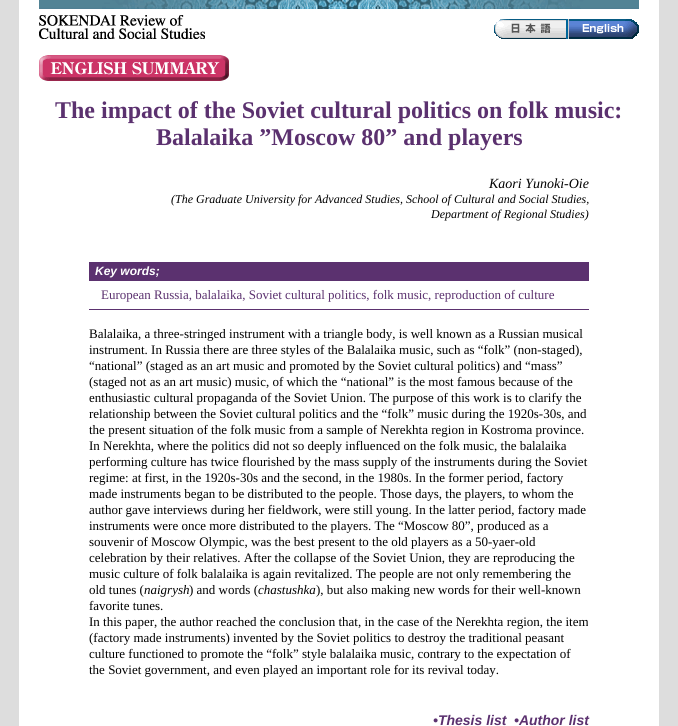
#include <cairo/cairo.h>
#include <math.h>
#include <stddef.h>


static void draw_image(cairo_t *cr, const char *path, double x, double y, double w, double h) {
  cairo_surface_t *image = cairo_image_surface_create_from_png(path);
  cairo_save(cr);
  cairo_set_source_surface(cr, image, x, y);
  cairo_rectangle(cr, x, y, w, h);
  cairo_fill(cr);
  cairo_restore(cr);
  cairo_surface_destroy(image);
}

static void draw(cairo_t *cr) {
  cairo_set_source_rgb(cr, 221 / 255.0, 221 / 255.0, 221 / 255.0);
  cairo_paint(cr);
  cairo_set_source_rgb(cr, 1, 1, 1);
  cairo_rectangle(cr, 19, 0, 640, 726);
  cairo_fill(cr);
  draw_image(cr, "images/1.png", 39, 0, 600, 9);
  draw_image(cr, "images/2.png", 39, 15, 166, 24);
  draw_image(cr, "images/3.png", 494, 19, 145, 20);
  draw_image(cr, "images/4.png", 39, 55, 190, 26);
  cairo_set_source_rgb(cr, 91 / 255.0, 49 / 255.0, 111 / 255.0);
  cairo_rectangle(cr, 89, 262, 500, 19);
  cairo_fill(cr);
  cairo_rectangle(cr, 89, 309, 500, 1);
  cairo_fill(cr);
  cairo_select_font_face(cr, "Liberation Serif", CAIRO_FONT_SLANT_NORMAL, CAIRO_FONT_WEIGHT_BOLD);
  cairo_set_font_size(cr, 24);
  cairo_move_to(cr, 55, 118);
  cairo_show_text(cr, "The impact of the Soviet cultural politics on folk music:");
  cairo_move_to(cr, 156, 145);
  cairo_show_text(cr, "Balalaika ”Moscow 80” and players");
  cairo_select_font_face(cr, "Liberation Serif", CAIRO_FONT_SLANT_ITALIC, CAIRO_FONT_WEIGHT_NORMAL);
  cairo_set_font_size(cr, 14);
  cairo_set_source_rgb(cr, 0, 0, 0);
  cairo_move_to(cr, 489, 188);
  cairo_show_text(cr, "Kaori Yunoki-Oie");
  cairo_set_font_size(cr, 12);
  cairo_move_to(cr, 171, 203);
  cairo_show_text(cr, "(The Graduate University for Advanced Studies, School of Cultural and Social Studies,");
  cairo_move_to(cr, 431, 218);
  cairo_show_text(cr, "Department of Regional Studies)");
  cairo_select_font_face(cr, "Liberation Sans", CAIRO_FONT_SLANT_ITALIC, CAIRO_FONT_WEIGHT_BOLD);
  cairo_set_source_rgb(cr, 1, 1, 1);
  cairo_move_to(cr, 95, 275);
  cairo_show_text(cr, "Key words;");
  cairo_select_font_face(cr, "Liberation Serif", CAIRO_FONT_SLANT_NORMAL, CAIRO_FONT_WEIGHT_NORMAL);
  cairo_set_font_size(cr, 13);
  cairo_set_source_rgb(cr, 91 / 255.0, 49 / 255.0, 111 / 255.0);
  cairo_move_to(cr, 101, 299);
  cairo_show_text(cr, "European Russia, balalaika, Soviet cultural politics, folk music, reproduction of culture");
  cairo_set_source_rgb(cr, 0, 0, 0);
  cairo_move_to(cr, 89, 338);
  cairo_show_text(cr, "Balalaika, a three-stringed instrument with a triangle body, is well known as a Russian musical");
  cairo_move_to(cr, 89, 354);
  cairo_show_text(cr, "instrument. In Russia there are three styles of the Balalaika music, such as “folk” (non-staged),");
  cairo_move_to(cr, 89, 370);
  cairo_show_text(cr, "“national” (staged as an art music and promoted by the Soviet cultural politics) and “mass”");
  cairo_move_to(cr, 89, 386);
  cairo_show_text(cr, "(staged not as an art music) music, of which the “national” is the most famous because of the");
  cairo_move_to(cr, 89, 402);
  cairo_show_text(cr, "enthusiastic cultural propaganda of the Soviet Union. The purpose of this work is to clarify the");
  cairo_move_to(cr, 89, 418);
  cairo_show_text(cr, "relationship between the Soviet cultural politics and the “folk” music during the 1920s-30s, and");
  cairo_move_to(cr, 89, 434);
  cairo_show_text(cr, "the present situation of the folk music from a sample of Nerekhta region in Kostroma province.");
  cairo_move_to(cr, 89, 450);
  cairo_show_text(cr, "In Nerekhta, where the politics did not so deeply influenced on the folk music, the balalaika");
  cairo_move_to(cr, 89, 466);
  cairo_show_text(cr, "performing culture has twice flourished by the mass supply of the instruments during the Soviet");
  cairo_move_to(cr, 89, 482);
  cairo_show_text(cr, "regime: at first, in the 1920s-30s and the second, in the 1980s. In the former period, factory");
  cairo_move_to(cr, 89, 498);
  cairo_show_text(cr, "made instruments began to be distributed to the people. Those days, the players, to whom the");
  cairo_move_to(cr, 89, 514);
  cairo_show_text(cr, "author gave interviews during her fieldwork, were still young. In the latter period, factory made");
  cairo_move_to(cr, 89, 530);
  cairo_show_text(cr, "instruments were once more distributed to the players. The “Moscow 80”, produced as a");
  cairo_move_to(cr, 89, 546);
  cairo_show_text(cr, "souvenir of Moscow Olympic, was the best present to the old players as a 50-yaer-old");
  cairo_move_to(cr, 89, 562);
  cairo_show_text(cr, "celebration by their relatives. After the collapse of the Soviet Union, they are reproducing the");
  cairo_move_to(cr, 89, 578);
  cairo_show_text(cr, "music culture of folk balalaika is again revitalized. The people are not only remembering the");
  cairo_move_to(cr, 89, 594);
  cairo_show_text(cr, "old tunes (");
  cairo_select_font_face(cr, "Liberation Serif", CAIRO_FONT_SLANT_ITALIC, CAIRO_FONT_WEIGHT_NORMAL);
  cairo_move_to(cr, 144, 594);
  cairo_show_text(cr, "naigrysh");
  cairo_select_font_face(cr, "Liberation Serif", CAIRO_FONT_SLANT_NORMAL, CAIRO_FONT_WEIGHT_NORMAL);
  cairo_move_to(cr, 189, 594);
  cairo_show_text(cr, ") and words (");
  cairo_select_font_face(cr, "Liberation Serif", CAIRO_FONT_SLANT_ITALIC, CAIRO_FONT_WEIGHT_NORMAL);
  cairo_move_to(cr, 258, 594);
  cairo_show_text(cr, "chastushka");
  cairo_select_font_face(cr, "Liberation Serif", CAIRO_FONT_SLANT_NORMAL, CAIRO_FONT_WEIGHT_NORMAL);
  cairo_move_to(cr, 316, 594);
  cairo_show_text(cr, "), but also making new words for their well-known");
  cairo_move_to(cr, 89, 610);
  cairo_show_text(cr, "favorite tunes.");
  cairo_move_to(cr, 89, 626);
  cairo_show_text(cr, "In this paper, the author reached the conclusion that, in the case of the Nerekhta region, the item");
  cairo_move_to(cr, 89, 642);
  cairo_show_text(cr, "(factory made instruments) invented by the Soviet politics to destroy the traditional peasant");
  cairo_move_to(cr, 89, 658);
  cairo_show_text(cr, "culture functioned to promote the “folk” style balalaika music, contrary to the expectation of");
  cairo_move_to(cr, 89, 674);
  cairo_show_text(cr, "the Soviet government, and even played an important role for its revival today.");
  cairo_select_font_face(cr, "Liberation Sans", CAIRO_FONT_SLANT_ITALIC, CAIRO_FONT_WEIGHT_BOLD);
  cairo_set_font_size(cr, 14);
  cairo_set_source_rgb(cr, 91 / 255.0, 49 / 255.0, 111 / 255.0);
  cairo_move_to(cr, 433, 725);
  cairo_show_text(cr, "•Thesis list");
  cairo_move_to(cr, 514, 725);
  cairo_show_text(cr, "•Author list");
}

int main(void) {
  cairo_surface_t *surface = cairo_image_surface_create(CAIRO_FORMAT_RGB24, 678, 726);
  cairo_t *cr = cairo_create(surface);
  cairo_font_options_t *options = cairo_font_options_create();
  cairo_font_options_set_hint_metrics(options, CAIRO_HINT_METRICS_OFF);
  cairo_font_options_set_hint_style(options, CAIRO_HINT_STYLE_NONE);
  cairo_set_font_options(cr, options);
  cairo_set_miter_limit(cr, 4);
  draw(cr);
  cairo_surface_write_to_png(surface, "out.png");
  cairo_font_options_destroy(options);
  cairo_destroy(cr);
  cairo_surface_destroy(surface);
  return 0;
}
